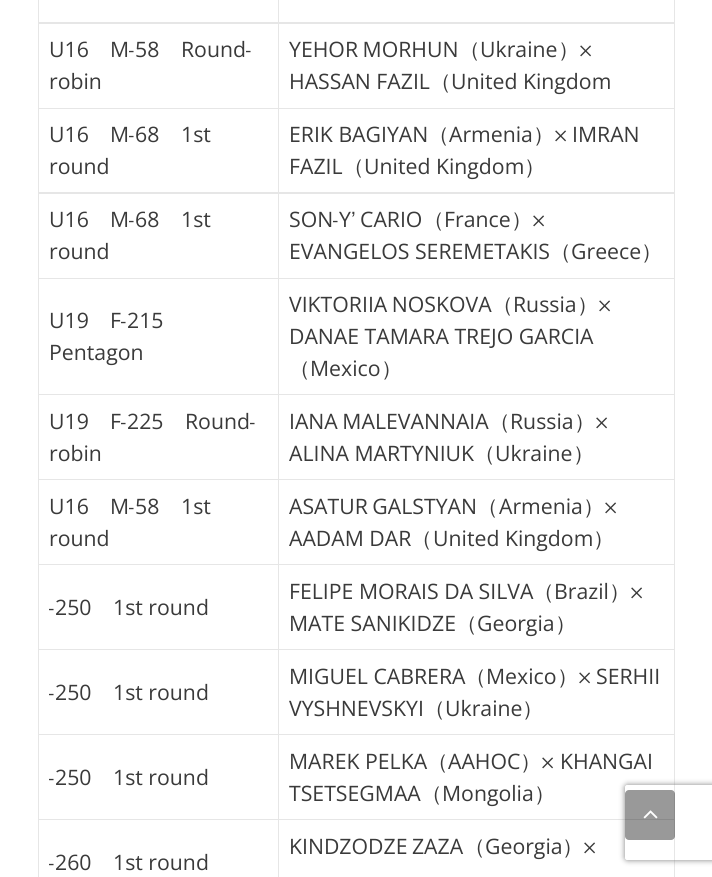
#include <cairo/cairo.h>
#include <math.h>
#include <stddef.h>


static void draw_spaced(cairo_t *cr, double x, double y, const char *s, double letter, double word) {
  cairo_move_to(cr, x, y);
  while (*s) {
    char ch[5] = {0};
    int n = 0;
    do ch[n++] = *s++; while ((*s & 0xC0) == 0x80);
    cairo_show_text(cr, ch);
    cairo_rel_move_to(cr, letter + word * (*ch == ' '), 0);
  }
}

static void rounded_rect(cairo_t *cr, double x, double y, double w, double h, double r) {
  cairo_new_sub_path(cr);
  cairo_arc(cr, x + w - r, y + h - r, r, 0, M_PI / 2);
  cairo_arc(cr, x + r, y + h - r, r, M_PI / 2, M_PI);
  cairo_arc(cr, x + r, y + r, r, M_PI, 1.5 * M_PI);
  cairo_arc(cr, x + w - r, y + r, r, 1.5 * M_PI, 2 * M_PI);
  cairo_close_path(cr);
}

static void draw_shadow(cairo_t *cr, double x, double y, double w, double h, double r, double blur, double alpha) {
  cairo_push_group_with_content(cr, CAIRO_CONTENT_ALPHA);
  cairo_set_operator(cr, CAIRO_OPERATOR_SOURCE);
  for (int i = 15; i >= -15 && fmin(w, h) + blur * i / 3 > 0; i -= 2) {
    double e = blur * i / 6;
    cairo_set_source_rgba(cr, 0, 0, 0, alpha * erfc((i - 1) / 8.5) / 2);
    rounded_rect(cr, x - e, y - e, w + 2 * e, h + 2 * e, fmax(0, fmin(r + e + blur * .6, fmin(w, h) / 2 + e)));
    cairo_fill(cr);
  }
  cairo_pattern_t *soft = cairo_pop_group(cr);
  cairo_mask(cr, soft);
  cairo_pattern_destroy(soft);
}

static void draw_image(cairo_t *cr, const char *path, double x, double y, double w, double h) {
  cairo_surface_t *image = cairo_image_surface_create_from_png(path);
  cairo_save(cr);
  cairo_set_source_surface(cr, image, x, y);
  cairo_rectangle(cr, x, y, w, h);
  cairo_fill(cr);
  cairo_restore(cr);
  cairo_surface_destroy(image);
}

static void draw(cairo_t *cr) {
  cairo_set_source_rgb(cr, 1, 1, 1);
  cairo_paint(cr);
  cairo_set_source_rgb(cr, 230 / 255.0, 230 / 255.0, 230 / 255.0);
  cairo_new_path(cr);
  cairo_move_to(cr, 38, 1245);
  cairo_line_to(cr, 38, -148);
  cairo_line_to(cr, 39, -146);
  cairo_line_to(cr, 39, 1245);
  cairo_close_path(cr);
  cairo_fill(cr);
  cairo_new_path(cr);
  cairo_move_to(cr, 279, -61);
  cairo_line_to(cr, 279, 24);
  cairo_line_to(cr, 278, 22);
  cairo_line_to(cr, 278, -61);
  cairo_close_path(cr);
  cairo_fill(cr);
  cairo_set_source_rgba(cr, 0, 0, 0, 0.1);
  cairo_new_path(cr);
  cairo_move_to(cr, 279, 24);
  cairo_line_to(cr, 39, 24);
  cairo_line_to(cr, 39, 22);
  cairo_line_to(cr, 278, 22);
  cairo_close_path(cr);
  cairo_fill(cr);
  cairo_set_source_rgb(cr, 230 / 255.0, 230 / 255.0, 230 / 255.0);
  cairo_new_path(cr);
  cairo_move_to(cr, 675, -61);
  cairo_line_to(cr, 675, 24);
  cairo_line_to(cr, 674, 22);
  cairo_line_to(cr, 674, -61);
  cairo_close_path(cr);
  cairo_fill(cr);
  cairo_set_source_rgba(cr, 0, 0, 0, 0.1);
  cairo_new_path(cr);
  cairo_move_to(cr, 675, 24);
  cairo_line_to(cr, 279, 24);
  cairo_line_to(cr, 279, 22);
  cairo_line_to(cr, 674, 22);
  cairo_close_path(cr);
  cairo_fill(cr);
  cairo_set_source_rgb(cr, 230 / 255.0, 230 / 255.0, 230 / 255.0);
  cairo_new_path(cr);
  cairo_move_to(cr, 279, 24);
  cairo_line_to(cr, 279, 109);
  cairo_line_to(cr, 278, 108);
  cairo_line_to(cr, 278, 24);
  cairo_close_path(cr);
  cairo_fill(cr);
  cairo_set_source_rgba(cr, 0, 0, 0, 0.1);
  cairo_new_path(cr);
  cairo_move_to(cr, 279, 109);
  cairo_line_to(cr, 39, 109);
  cairo_line_to(cr, 39, 108);
  cairo_line_to(cr, 278, 108);
  cairo_close_path(cr);
  cairo_fill(cr);
  cairo_set_source_rgb(cr, 230 / 255.0, 230 / 255.0, 230 / 255.0);
  cairo_new_path(cr);
  cairo_move_to(cr, 675, 24);
  cairo_line_to(cr, 675, 109);
  cairo_line_to(cr, 674, 108);
  cairo_line_to(cr, 674, 24);
  cairo_close_path(cr);
  cairo_fill(cr);
  cairo_set_source_rgba(cr, 0, 0, 0, 0.1);
  cairo_new_path(cr);
  cairo_move_to(cr, 675, 109);
  cairo_line_to(cr, 279, 109);
  cairo_line_to(cr, 279, 108);
  cairo_line_to(cr, 674, 108);
  cairo_close_path(cr);
  cairo_fill(cr);
  cairo_set_source_rgb(cr, 230 / 255.0, 230 / 255.0, 230 / 255.0);
  cairo_new_path(cr);
  cairo_move_to(cr, 279, 109);
  cairo_line_to(cr, 279, 194);
  cairo_line_to(cr, 278, 192);
  cairo_line_to(cr, 278, 109);
  cairo_close_path(cr);
  cairo_fill(cr);
  cairo_set_source_rgba(cr, 0, 0, 0, 0.1);
  cairo_new_path(cr);
  cairo_move_to(cr, 279, 194);
  cairo_line_to(cr, 39, 194);
  cairo_line_to(cr, 39, 192);
  cairo_line_to(cr, 278, 192);
  cairo_close_path(cr);
  cairo_fill(cr);
  cairo_set_source_rgb(cr, 230 / 255.0, 230 / 255.0, 230 / 255.0);
  cairo_new_path(cr);
  cairo_move_to(cr, 675, 109);
  cairo_line_to(cr, 675, 194);
  cairo_line_to(cr, 674, 192);
  cairo_line_to(cr, 674, 109);
  cairo_close_path(cr);
  cairo_fill(cr);
  cairo_set_source_rgba(cr, 0, 0, 0, 0.1);
  cairo_new_path(cr);
  cairo_move_to(cr, 675, 194);
  cairo_line_to(cr, 279, 194);
  cairo_line_to(cr, 279, 192);
  cairo_line_to(cr, 674, 192);
  cairo_close_path(cr);
  cairo_fill(cr);
  cairo_set_source_rgb(cr, 230 / 255.0, 230 / 255.0, 230 / 255.0);
  cairo_new_path(cr);
  cairo_move_to(cr, 279, 194);
  cairo_line_to(cr, 279, 279);
  cairo_line_to(cr, 278, 278);
  cairo_line_to(cr, 278, 194);
  cairo_close_path(cr);
  cairo_fill(cr);
  cairo_set_source_rgba(cr, 0, 0, 0, 0.1);
  cairo_new_path(cr);
  cairo_move_to(cr, 279, 279);
  cairo_line_to(cr, 39, 279);
  cairo_line_to(cr, 39, 278);
  cairo_line_to(cr, 278, 278);
  cairo_close_path(cr);
  cairo_fill(cr);
  cairo_set_source_rgb(cr, 230 / 255.0, 230 / 255.0, 230 / 255.0);
  cairo_new_path(cr);
  cairo_move_to(cr, 675, 194);
  cairo_line_to(cr, 675, 279);
  cairo_line_to(cr, 674, 278);
  cairo_line_to(cr, 674, 194);
  cairo_close_path(cr);
  cairo_fill(cr);
  cairo_set_source_rgba(cr, 0, 0, 0, 0.1);
  cairo_new_path(cr);
  cairo_move_to(cr, 675, 279);
  cairo_line_to(cr, 279, 279);
  cairo_line_to(cr, 279, 278);
  cairo_line_to(cr, 674, 278);
  cairo_close_path(cr);
  cairo_fill(cr);
  cairo_set_source_rgb(cr, 230 / 255.0, 230 / 255.0, 230 / 255.0);
  cairo_new_path(cr);
  cairo_move_to(cr, 279, 279);
  cairo_line_to(cr, 279, 395);
  cairo_line_to(cr, 278, 394);
  cairo_line_to(cr, 278, 279);
  cairo_close_path(cr);
  cairo_fill(cr);
  cairo_set_source_rgba(cr, 0, 0, 0, 0.1);
  cairo_new_path(cr);
  cairo_move_to(cr, 279, 395);
  cairo_line_to(cr, 39, 395);
  cairo_line_to(cr, 39, 394);
  cairo_line_to(cr, 278, 394);
  cairo_close_path(cr);
  cairo_fill(cr);
  cairo_set_source_rgb(cr, 230 / 255.0, 230 / 255.0, 230 / 255.0);
  cairo_new_path(cr);
  cairo_move_to(cr, 675, 279);
  cairo_line_to(cr, 675, 395);
  cairo_line_to(cr, 674, 394);
  cairo_line_to(cr, 674, 279);
  cairo_close_path(cr);
  cairo_fill(cr);
  cairo_set_source_rgba(cr, 0, 0, 0, 0.1);
  cairo_new_path(cr);
  cairo_move_to(cr, 675, 395);
  cairo_line_to(cr, 279, 395);
  cairo_line_to(cr, 279, 394);
  cairo_line_to(cr, 674, 394);
  cairo_close_path(cr);
  cairo_fill(cr);
  cairo_set_source_rgb(cr, 230 / 255.0, 230 / 255.0, 230 / 255.0);
  cairo_new_path(cr);
  cairo_move_to(cr, 279, 395);
  cairo_line_to(cr, 279, 480);
  cairo_line_to(cr, 278, 479);
  cairo_line_to(cr, 278, 395);
  cairo_close_path(cr);
  cairo_fill(cr);
  cairo_set_source_rgba(cr, 0, 0, 0, 0.1);
  cairo_new_path(cr);
  cairo_move_to(cr, 279, 480);
  cairo_line_to(cr, 39, 480);
  cairo_line_to(cr, 39, 479);
  cairo_line_to(cr, 278, 479);
  cairo_close_path(cr);
  cairo_fill(cr);
  cairo_set_source_rgb(cr, 230 / 255.0, 230 / 255.0, 230 / 255.0);
  cairo_new_path(cr);
  cairo_move_to(cr, 675, 395);
  cairo_line_to(cr, 675, 480);
  cairo_line_to(cr, 674, 479);
  cairo_line_to(cr, 674, 395);
  cairo_close_path(cr);
  cairo_fill(cr);
  cairo_set_source_rgba(cr, 0, 0, 0, 0.1);
  cairo_new_path(cr);
  cairo_move_to(cr, 675, 480);
  cairo_line_to(cr, 279, 480);
  cairo_line_to(cr, 279, 479);
  cairo_line_to(cr, 674, 479);
  cairo_close_path(cr);
  cairo_fill(cr);
  cairo_set_source_rgb(cr, 230 / 255.0, 230 / 255.0, 230 / 255.0);
  cairo_new_path(cr);
  cairo_move_to(cr, 279, 480);
  cairo_line_to(cr, 279, 565);
  cairo_line_to(cr, 278, 564);
  cairo_line_to(cr, 278, 480);
  cairo_close_path(cr);
  cairo_fill(cr);
  cairo_set_source_rgba(cr, 0, 0, 0, 0.1);
  cairo_new_path(cr);
  cairo_move_to(cr, 279, 565);
  cairo_line_to(cr, 39, 565);
  cairo_line_to(cr, 39, 564);
  cairo_line_to(cr, 278, 564);
  cairo_close_path(cr);
  cairo_fill(cr);
  cairo_set_source_rgb(cr, 230 / 255.0, 230 / 255.0, 230 / 255.0);
  cairo_new_path(cr);
  cairo_move_to(cr, 675, 480);
  cairo_line_to(cr, 675, 565);
  cairo_line_to(cr, 674, 564);
  cairo_line_to(cr, 674, 480);
  cairo_close_path(cr);
  cairo_fill(cr);
  cairo_set_source_rgba(cr, 0, 0, 0, 0.1);
  cairo_new_path(cr);
  cairo_move_to(cr, 675, 565);
  cairo_line_to(cr, 279, 565);
  cairo_line_to(cr, 279, 564);
  cairo_line_to(cr, 674, 564);
  cairo_close_path(cr);
  cairo_fill(cr);
  cairo_set_source_rgb(cr, 230 / 255.0, 230 / 255.0, 230 / 255.0);
  cairo_new_path(cr);
  cairo_move_to(cr, 279, 565);
  cairo_line_to(cr, 279, 650);
  cairo_line_to(cr, 278, 649);
  cairo_line_to(cr, 278, 565);
  cairo_close_path(cr);
  cairo_fill(cr);
  cairo_set_source_rgba(cr, 0, 0, 0, 0.1);
  cairo_new_path(cr);
  cairo_move_to(cr, 279, 650);
  cairo_line_to(cr, 39, 650);
  cairo_line_to(cr, 39, 649);
  cairo_line_to(cr, 278, 649);
  cairo_close_path(cr);
  cairo_fill(cr);
  cairo_set_source_rgb(cr, 230 / 255.0, 230 / 255.0, 230 / 255.0);
  cairo_new_path(cr);
  cairo_move_to(cr, 675, 565);
  cairo_line_to(cr, 675, 650);
  cairo_line_to(cr, 674, 649);
  cairo_line_to(cr, 674, 565);
  cairo_close_path(cr);
  cairo_fill(cr);
  cairo_set_source_rgba(cr, 0, 0, 0, 0.1);
  cairo_new_path(cr);
  cairo_move_to(cr, 675, 650);
  cairo_line_to(cr, 279, 650);
  cairo_line_to(cr, 279, 649);
  cairo_line_to(cr, 674, 649);
  cairo_close_path(cr);
  cairo_fill(cr);
  cairo_set_source_rgb(cr, 230 / 255.0, 230 / 255.0, 230 / 255.0);
  cairo_new_path(cr);
  cairo_move_to(cr, 279, 650);
  cairo_line_to(cr, 279, 735);
  cairo_line_to(cr, 278, 734);
  cairo_line_to(cr, 278, 650);
  cairo_close_path(cr);
  cairo_fill(cr);
  cairo_set_source_rgba(cr, 0, 0, 0, 0.1);
  cairo_new_path(cr);
  cairo_move_to(cr, 279, 735);
  cairo_line_to(cr, 39, 735);
  cairo_line_to(cr, 39, 734);
  cairo_line_to(cr, 278, 734);
  cairo_close_path(cr);
  cairo_fill(cr);
  cairo_set_source_rgb(cr, 230 / 255.0, 230 / 255.0, 230 / 255.0);
  cairo_new_path(cr);
  cairo_move_to(cr, 675, 650);
  cairo_line_to(cr, 675, 735);
  cairo_line_to(cr, 674, 734);
  cairo_line_to(cr, 674, 650);
  cairo_close_path(cr);
  cairo_fill(cr);
  cairo_set_source_rgba(cr, 0, 0, 0, 0.1);
  cairo_new_path(cr);
  cairo_move_to(cr, 675, 735);
  cairo_line_to(cr, 279, 735);
  cairo_line_to(cr, 279, 734);
  cairo_line_to(cr, 674, 734);
  cairo_close_path(cr);
  cairo_fill(cr);
  cairo_set_source_rgb(cr, 230 / 255.0, 230 / 255.0, 230 / 255.0);
  cairo_new_path(cr);
  cairo_move_to(cr, 279, 735);
  cairo_line_to(cr, 279, 820);
  cairo_line_to(cr, 278, 819);
  cairo_line_to(cr, 278, 735);
  cairo_close_path(cr);
  cairo_fill(cr);
  cairo_set_source_rgba(cr, 0, 0, 0, 0.1);
  cairo_new_path(cr);
  cairo_move_to(cr, 279, 820);
  cairo_line_to(cr, 39, 820);
  cairo_line_to(cr, 39, 819);
  cairo_line_to(cr, 278, 819);
  cairo_close_path(cr);
  cairo_fill(cr);
  cairo_set_source_rgb(cr, 230 / 255.0, 230 / 255.0, 230 / 255.0);
  cairo_new_path(cr);
  cairo_move_to(cr, 675, 735);
  cairo_line_to(cr, 675, 820);
  cairo_line_to(cr, 674, 819);
  cairo_line_to(cr, 674, 735);
  cairo_close_path(cr);
  cairo_fill(cr);
  cairo_set_source_rgba(cr, 0, 0, 0, 0.1);
  cairo_new_path(cr);
  cairo_move_to(cr, 675, 820);
  cairo_line_to(cr, 279, 820);
  cairo_line_to(cr, 279, 819);
  cairo_line_to(cr, 674, 819);
  cairo_close_path(cr);
  cairo_fill(cr);
  cairo_set_source_rgb(cr, 230 / 255.0, 230 / 255.0, 230 / 255.0);
  cairo_new_path(cr);
  cairo_move_to(cr, 675, 820);
  cairo_line_to(cr, 675, 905);
  cairo_line_to(cr, 674, 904);
  cairo_line_to(cr, 674, 820);
  cairo_close_path(cr);
  cairo_fill(cr);
  cairo_new_path(cr);
  cairo_move_to(cr, 279, 820);
  cairo_line_to(cr, 279, 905);
  cairo_line_to(cr, 278, 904);
  cairo_line_to(cr, 278, 820);
  cairo_close_path(cr);
  cairo_fill(cr);
  cairo_save(cr);
  cairo_set_fill_rule(cr, CAIRO_FILL_RULE_EVEN_ODD);
  cairo_new_path(cr);
  cairo_move_to(cr, 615, 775);
  cairo_line_to(cr, 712, 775);
  cairo_line_to(cr, 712, 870);
  cairo_line_to(cr, 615, 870);
  cairo_close_path(cr);
  cairo_move_to(cr, 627.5, 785);
  cairo_line_to(cr, 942.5, 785);
  cairo_curve_to(cr, 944, 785, 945, 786, 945, 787.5);
  cairo_line_to(cr, 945, 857.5);
  cairo_curve_to(cr, 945, 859, 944, 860, 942.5, 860);
  cairo_line_to(cr, 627.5, 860);
  cairo_curve_to(cr, 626, 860, 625, 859, 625, 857.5);
  cairo_line_to(cr, 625, 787.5);
  cairo_curve_to(cr, 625, 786, 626, 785, 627.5, 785);
  cairo_close_path(cr);
  cairo_clip(cr);
  cairo_set_source_rgb(cr, 128 / 255.0, 128 / 255.0, 128 / 255.0);
  draw_shadow(cr, 625, 785, 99, 75, 2.5, 3, 1);
  cairo_restore(cr);
  cairo_set_source_rgba(cr, 0, 0, 0, 0.4);
  rounded_rect(cr, 625, 790, 50, 50, 4);
  cairo_fill(cr);
  draw_image(cr, "images/1.png", 643, 810, 15, 9);
  cairo_select_font_face(cr, "Open Sans", CAIRO_FONT_SLANT_NORMAL, CAIRO_FONT_WEIGHT_NORMAL);
  cairo_set_font_size(cr, 21.25);
  cairo_set_source_rgb(cr, 58 / 255.0, 58 / 255.0, 58 / 255.0);
  cairo_move_to(cr, 49, 57);
  cairo_show_text(cr, "U16");
  cairo_move_to(cr, 110, 57);
  cairo_show_text(cr, "M");
  cairo_select_font_face(cr, "WenQuanYi Zen Hei Medium", CAIRO_FONT_SLANT_NORMAL, CAIRO_FONT_WEIGHT_NORMAL);
  cairo_move_to(cr, 129, 57);
  cairo_show_text(cr, "-");
  cairo_select_font_face(cr, "Open Sans", CAIRO_FONT_SLANT_NORMAL, CAIRO_FONT_WEIGHT_NORMAL);
  cairo_move_to(cr, 135, 57);
  cairo_show_text(cr, "58");
  cairo_move_to(cr, 181, 57);
  cairo_show_text(cr, "Round");
  cairo_select_font_face(cr, "WenQuanYi Zen Hei Medium", CAIRO_FONT_SLANT_NORMAL, CAIRO_FONT_WEIGHT_NORMAL);
  cairo_move_to(cr, 246, 57);
  cairo_show_text(cr, "-");
  cairo_select_font_face(cr, "Open Sans", CAIRO_FONT_SLANT_NORMAL, CAIRO_FONT_WEIGHT_NORMAL);
  cairo_move_to(cr, 49, 89);
  cairo_show_text(cr, "robin");
  draw_spaced(cr, 289, 57, "YEHOR MORHUN", 0, -1);
  cairo_select_font_face(cr, "WenQuanYi Zen Hei Medium", CAIRO_FONT_SLANT_NORMAL, CAIRO_FONT_WEIGHT_NORMAL);
  cairo_move_to(cr, 459, 57);
  cairo_show_text(cr, "（");
  cairo_select_font_face(cr, "Open Sans", CAIRO_FONT_SLANT_NORMAL, CAIRO_FONT_WEIGHT_NORMAL);
  cairo_move_to(cr, 480, 57);
  cairo_show_text(cr, "Ukraine");
  cairo_select_font_face(cr, "WenQuanYi Zen Hei Medium", CAIRO_FONT_SLANT_NORMAL, CAIRO_FONT_WEIGHT_NORMAL);
  cairo_move_to(cr, 558, 57);
  cairo_show_text(cr, "）×");
  cairo_select_font_face(cr, "Open Sans", CAIRO_FONT_SLANT_NORMAL, CAIRO_FONT_WEIGHT_NORMAL);
  cairo_move_to(cr, 289, 89);
  cairo_show_text(cr, "HASSAN FAZIL");
  cairo_select_font_face(cr, "WenQuanYi Zen Hei Medium", CAIRO_FONT_SLANT_NORMAL, CAIRO_FONT_WEIGHT_NORMAL);
  cairo_move_to(cr, 430, 89);
  cairo_show_text(cr, "（");
  cairo_select_font_face(cr, "Open Sans", CAIRO_FONT_SLANT_NORMAL, CAIRO_FONT_WEIGHT_NORMAL);
  cairo_move_to(cr, 451, 89);
  cairo_show_text(cr, "United Kingdom");
  cairo_move_to(cr, 49, 142);
  cairo_show_text(cr, "U16");
  cairo_move_to(cr, 110, 142);
  cairo_show_text(cr, "M");
  cairo_select_font_face(cr, "WenQuanYi Zen Hei Medium", CAIRO_FONT_SLANT_NORMAL, CAIRO_FONT_WEIGHT_NORMAL);
  cairo_move_to(cr, 129, 142);
  cairo_show_text(cr, "-");
  cairo_select_font_face(cr, "Open Sans", CAIRO_FONT_SLANT_NORMAL, CAIRO_FONT_WEIGHT_NORMAL);
  cairo_move_to(cr, 135, 142);
  cairo_show_text(cr, "68");
  cairo_move_to(cr, 181, 142);
  cairo_show_text(cr, "1st");
  cairo_move_to(cr, 49, 174);
  cairo_show_text(cr, "round");
  cairo_move_to(cr, 289, 142);
  cairo_show_text(cr, "ERIK BAGIYAN");
  cairo_select_font_face(cr, "WenQuanYi Zen Hei Medium", CAIRO_FONT_SLANT_NORMAL, CAIRO_FONT_WEIGHT_NORMAL);
  cairo_move_to(cr, 428, 142);
  cairo_show_text(cr, "（");
  cairo_select_font_face(cr, "Open Sans", CAIRO_FONT_SLANT_NORMAL, CAIRO_FONT_WEIGHT_NORMAL);
  cairo_move_to(cr, 449, 142);
  cairo_show_text(cr, "Armenia");
  cairo_select_font_face(cr, "WenQuanYi Zen Hei Medium", CAIRO_FONT_SLANT_NORMAL, CAIRO_FONT_WEIGHT_NORMAL);
  cairo_move_to(cr, 533, 142);
  cairo_show_text(cr, "）×");
  cairo_select_font_face(cr, "Open Sans", CAIRO_FONT_SLANT_NORMAL, CAIRO_FONT_WEIGHT_NORMAL);
  cairo_move_to(cr, 572, 142);
  cairo_show_text(cr, "IMRAN");
  cairo_move_to(cr, 289, 174);
  cairo_show_text(cr, "FAZIL");
  cairo_select_font_face(cr, "WenQuanYi Zen Hei Medium", CAIRO_FONT_SLANT_NORMAL, CAIRO_FONT_WEIGHT_NORMAL);
  cairo_move_to(cr, 343, 174);
  cairo_show_text(cr, "（");
  cairo_select_font_face(cr, "Open Sans", CAIRO_FONT_SLANT_NORMAL, CAIRO_FONT_WEIGHT_NORMAL);
  cairo_move_to(cr, 364, 174);
  cairo_show_text(cr, "United Kingdom");
  cairo_select_font_face(cr, "WenQuanYi Zen Hei Medium", CAIRO_FONT_SLANT_NORMAL, CAIRO_FONT_WEIGHT_NORMAL);
  cairo_move_to(cr, 524, 174);
  cairo_show_text(cr, "）");
  cairo_select_font_face(cr, "Open Sans", CAIRO_FONT_SLANT_NORMAL, CAIRO_FONT_WEIGHT_NORMAL);
  cairo_move_to(cr, 49, 227);
  cairo_show_text(cr, "U16");
  cairo_move_to(cr, 110, 227);
  cairo_show_text(cr, "M");
  cairo_select_font_face(cr, "WenQuanYi Zen Hei Medium", CAIRO_FONT_SLANT_NORMAL, CAIRO_FONT_WEIGHT_NORMAL);
  cairo_move_to(cr, 129, 227);
  cairo_show_text(cr, "-");
  cairo_select_font_face(cr, "Open Sans", CAIRO_FONT_SLANT_NORMAL, CAIRO_FONT_WEIGHT_NORMAL);
  cairo_move_to(cr, 135, 227);
  cairo_show_text(cr, "68");
  cairo_move_to(cr, 181, 227);
  cairo_show_text(cr, "1st");
  cairo_move_to(cr, 49, 259);
  cairo_show_text(cr, "round");
  cairo_move_to(cr, 289, 227);
  cairo_show_text(cr, "SON");
  cairo_select_font_face(cr, "WenQuanYi Zen Hei Medium", CAIRO_FONT_SLANT_NORMAL, CAIRO_FONT_WEIGHT_NORMAL);
  cairo_move_to(cr, 333, 227);
  cairo_show_text(cr, "-");
  cairo_select_font_face(cr, "Open Sans", CAIRO_FONT_SLANT_NORMAL, CAIRO_FONT_WEIGHT_NORMAL);
  cairo_move_to(cr, 339, 227);
  cairo_show_text(cr, "Y");
  cairo_select_font_face(cr, "WenQuanYi Zen Hei Medium", CAIRO_FONT_SLANT_NORMAL, CAIRO_FONT_WEIGHT_NORMAL);
  cairo_move_to(cr, 351, 227);
  cairo_show_text(cr, "’");
  cairo_select_font_face(cr, "Open Sans", CAIRO_FONT_SLANT_NORMAL, CAIRO_FONT_WEIGHT_NORMAL);
  cairo_move_to(cr, 360, 227);
  cairo_show_text(cr, "CARIO");
  cairo_select_font_face(cr, "WenQuanYi Zen Hei Medium", CAIRO_FONT_SLANT_NORMAL, CAIRO_FONT_WEIGHT_NORMAL);
  cairo_move_to(cr, 423, 227);
  cairo_show_text(cr, "（");
  cairo_select_font_face(cr, "Open Sans", CAIRO_FONT_SLANT_NORMAL, CAIRO_FONT_WEIGHT_NORMAL);
  cairo_move_to(cr, 444, 227);
  cairo_show_text(cr, "France");
  cairo_select_font_face(cr, "WenQuanYi Zen Hei Medium", CAIRO_FONT_SLANT_NORMAL, CAIRO_FONT_WEIGHT_NORMAL);
  cairo_move_to(cr, 511, 227);
  cairo_show_text(cr, "）×");
  cairo_select_font_face(cr, "Open Sans", CAIRO_FONT_SLANT_NORMAL, CAIRO_FONT_WEIGHT_NORMAL);
  cairo_move_to(cr, 289, 259);
  cairo_show_text(cr, "EVANGELOS SEREMETAKIS");
  cairo_select_font_face(cr, "WenQuanYi Zen Hei Medium", CAIRO_FONT_SLANT_NORMAL, CAIRO_FONT_WEIGHT_NORMAL);
  cairo_move_to(cr, 550, 259);
  cairo_show_text(cr, "（");
  cairo_select_font_face(cr, "Open Sans", CAIRO_FONT_SLANT_NORMAL, CAIRO_FONT_WEIGHT_NORMAL);
  cairo_move_to(cr, 571, 259);
  cairo_show_text(cr, "Greece");
  cairo_select_font_face(cr, "WenQuanYi Zen Hei Medium", CAIRO_FONT_SLANT_NORMAL, CAIRO_FONT_WEIGHT_NORMAL);
  cairo_move_to(cr, 641, 259);
  cairo_show_text(cr, "）");
  cairo_select_font_face(cr, "Open Sans", CAIRO_FONT_SLANT_NORMAL, CAIRO_FONT_WEIGHT_NORMAL);
  cairo_move_to(cr, 49, 328);
  cairo_show_text(cr, "U19");
  cairo_move_to(cr, 110, 328);
  cairo_show_text(cr, "F");
  cairo_select_font_face(cr, "WenQuanYi Zen Hei Medium", CAIRO_FONT_SLANT_NORMAL, CAIRO_FONT_WEIGHT_NORMAL);
  cairo_move_to(cr, 121, 328);
  cairo_show_text(cr, "-");
  cairo_select_font_face(cr, "Open Sans", CAIRO_FONT_SLANT_NORMAL, CAIRO_FONT_WEIGHT_NORMAL);
  cairo_move_to(cr, 127, 328);
  cairo_show_text(cr, "215");
  cairo_move_to(cr, 49, 360);
  cairo_show_text(cr, "Pentagon");
  draw_spaced(cr, 289, 312, "VIKTORIIA NOSKOVA", 0, -1);
  cairo_select_font_face(cr, "WenQuanYi Zen Hei Medium", CAIRO_FONT_SLANT_NORMAL, CAIRO_FONT_WEIGHT_NORMAL);
  cairo_move_to(cr, 492, 312);
  cairo_show_text(cr, "（");
  cairo_select_font_face(cr, "Open Sans", CAIRO_FONT_SLANT_NORMAL, CAIRO_FONT_WEIGHT_NORMAL);
  cairo_move_to(cr, 513, 312);
  cairo_show_text(cr, "Russia");
  cairo_select_font_face(cr, "WenQuanYi Zen Hei Medium", CAIRO_FONT_SLANT_NORMAL, CAIRO_FONT_WEIGHT_NORMAL);
  cairo_move_to(cr, 577, 312);
  cairo_show_text(cr, "）×");
  cairo_select_font_face(cr, "Open Sans", CAIRO_FONT_SLANT_NORMAL, CAIRO_FONT_WEIGHT_NORMAL);
  cairo_move_to(cr, 289, 344);
  cairo_show_text(cr, "DANAE TAMARA TREJO GARCIA");
  cairo_select_font_face(cr, "WenQuanYi Zen Hei Medium", CAIRO_FONT_SLANT_NORMAL, CAIRO_FONT_WEIGHT_NORMAL);
  cairo_move_to(cr, 289, 376);
  cairo_show_text(cr, "（");
  cairo_select_font_face(cr, "Open Sans", CAIRO_FONT_SLANT_NORMAL, CAIRO_FONT_WEIGHT_NORMAL);
  cairo_move_to(cr, 310, 376);
  cairo_show_text(cr, "Mexico");
  cairo_select_font_face(cr, "WenQuanYi Zen Hei Medium", CAIRO_FONT_SLANT_NORMAL, CAIRO_FONT_WEIGHT_NORMAL);
  cairo_move_to(cr, 381, 376);
  cairo_show_text(cr, "）");
  cairo_select_font_face(cr, "Open Sans", CAIRO_FONT_SLANT_NORMAL, CAIRO_FONT_WEIGHT_NORMAL);
  cairo_move_to(cr, 49, 429);
  cairo_show_text(cr, "U19");
  cairo_move_to(cr, 110, 429);
  cairo_show_text(cr, "F");
  cairo_select_font_face(cr, "WenQuanYi Zen Hei Medium", CAIRO_FONT_SLANT_NORMAL, CAIRO_FONT_WEIGHT_NORMAL);
  cairo_move_to(cr, 121, 429);
  cairo_show_text(cr, "-");
  cairo_select_font_face(cr, "Open Sans", CAIRO_FONT_SLANT_NORMAL, CAIRO_FONT_WEIGHT_NORMAL);
  cairo_move_to(cr, 127, 429);
  cairo_show_text(cr, "225");
  cairo_move_to(cr, 185, 429);
  cairo_show_text(cr, "Round");
  cairo_select_font_face(cr, "WenQuanYi Zen Hei Medium", CAIRO_FONT_SLANT_NORMAL, CAIRO_FONT_WEIGHT_NORMAL);
  cairo_move_to(cr, 250, 429);
  cairo_show_text(cr, "-");
  cairo_select_font_face(cr, "Open Sans", CAIRO_FONT_SLANT_NORMAL, CAIRO_FONT_WEIGHT_NORMAL);
  cairo_move_to(cr, 49, 461);
  cairo_show_text(cr, "robin");
  draw_spaced(cr, 289, 429, "IANA MALEVANNAIA", 0, -1);
  cairo_select_font_face(cr, "WenQuanYi Zen Hei Medium", CAIRO_FONT_SLANT_NORMAL, CAIRO_FONT_WEIGHT_NORMAL);
  cairo_move_to(cr, 489, 429);
  cairo_show_text(cr, "（");
  cairo_select_font_face(cr, "Open Sans", CAIRO_FONT_SLANT_NORMAL, CAIRO_FONT_WEIGHT_NORMAL);
  cairo_move_to(cr, 510, 429);
  cairo_show_text(cr, "Russia");
  cairo_select_font_face(cr, "WenQuanYi Zen Hei Medium", CAIRO_FONT_SLANT_NORMAL, CAIRO_FONT_WEIGHT_NORMAL);
  cairo_move_to(cr, 574, 429);
  cairo_show_text(cr, "）×");
  cairo_select_font_face(cr, "Open Sans", CAIRO_FONT_SLANT_NORMAL, CAIRO_FONT_WEIGHT_NORMAL);
  cairo_move_to(cr, 289, 461);
  cairo_show_text(cr, "ALINA MARTYNIUK");
  cairo_select_font_face(cr, "WenQuanYi Zen Hei Medium", CAIRO_FONT_SLANT_NORMAL, CAIRO_FONT_WEIGHT_NORMAL);
  cairo_move_to(cr, 474, 461);
  cairo_show_text(cr, "（");
  cairo_select_font_face(cr, "Open Sans", CAIRO_FONT_SLANT_NORMAL, CAIRO_FONT_WEIGHT_NORMAL);
  cairo_move_to(cr, 495, 461);
  cairo_show_text(cr, "Ukraine");
  cairo_select_font_face(cr, "WenQuanYi Zen Hei Medium", CAIRO_FONT_SLANT_NORMAL, CAIRO_FONT_WEIGHT_NORMAL);
  cairo_move_to(cr, 573, 461);
  cairo_show_text(cr, "）");
  cairo_select_font_face(cr, "Open Sans", CAIRO_FONT_SLANT_NORMAL, CAIRO_FONT_WEIGHT_NORMAL);
  cairo_move_to(cr, 49, 514);
  cairo_show_text(cr, "U16");
  cairo_move_to(cr, 110, 514);
  cairo_show_text(cr, "M");
  cairo_select_font_face(cr, "WenQuanYi Zen Hei Medium", CAIRO_FONT_SLANT_NORMAL, CAIRO_FONT_WEIGHT_NORMAL);
  cairo_move_to(cr, 129, 514);
  cairo_show_text(cr, "-");
  cairo_select_font_face(cr, "Open Sans", CAIRO_FONT_SLANT_NORMAL, CAIRO_FONT_WEIGHT_NORMAL);
  cairo_move_to(cr, 135, 514);
  cairo_show_text(cr, "58");
  cairo_move_to(cr, 181, 514);
  cairo_show_text(cr, "1st");
  cairo_move_to(cr, 49, 546);
  cairo_show_text(cr, "round");
  draw_spaced(cr, 289, 514, "ASATUR GALSTYAN", 0, -1);
  cairo_select_font_face(cr, "WenQuanYi Zen Hei Medium", CAIRO_FONT_SLANT_NORMAL, CAIRO_FONT_WEIGHT_NORMAL);
  cairo_move_to(cr, 477, 514);
  cairo_show_text(cr, "（");
  cairo_select_font_face(cr, "Open Sans", CAIRO_FONT_SLANT_NORMAL, CAIRO_FONT_WEIGHT_NORMAL);
  cairo_move_to(cr, 499, 514);
  cairo_show_text(cr, "Armenia");
  cairo_select_font_face(cr, "WenQuanYi Zen Hei Medium", CAIRO_FONT_SLANT_NORMAL, CAIRO_FONT_WEIGHT_NORMAL);
  cairo_move_to(cr, 583, 514);
  cairo_show_text(cr, "）×");
  cairo_select_font_face(cr, "Open Sans", CAIRO_FONT_SLANT_NORMAL, CAIRO_FONT_WEIGHT_NORMAL);
  cairo_move_to(cr, 289, 546);
  cairo_show_text(cr, "AADAM DAR");
  cairo_select_font_face(cr, "WenQuanYi Zen Hei Medium", CAIRO_FONT_SLANT_NORMAL, CAIRO_FONT_WEIGHT_NORMAL);
  cairo_move_to(cr, 411, 546);
  cairo_show_text(cr, "（");
  cairo_select_font_face(cr, "Open Sans", CAIRO_FONT_SLANT_NORMAL, CAIRO_FONT_WEIGHT_NORMAL);
  cairo_move_to(cr, 433, 546);
  cairo_show_text(cr, "United Kingdom");
  cairo_select_font_face(cr, "WenQuanYi Zen Hei Medium", CAIRO_FONT_SLANT_NORMAL, CAIRO_FONT_WEIGHT_NORMAL);
  cairo_move_to(cr, 593, 546);
  cairo_show_text(cr, "）");
  cairo_move_to(cr, 49, 615);
  cairo_show_text(cr, "-");
  cairo_select_font_face(cr, "Open Sans", CAIRO_FONT_SLANT_NORMAL, CAIRO_FONT_WEIGHT_NORMAL);
  cairo_move_to(cr, 55, 615);
  cairo_show_text(cr, "250");
  cairo_move_to(cr, 113, 615);
  cairo_show_text(cr, "1st round");
  cairo_move_to(cr, 289, 599);
  cairo_show_text(cr, "FELIPE MORAIS DA SILVA");
  cairo_select_font_face(cr, "WenQuanYi Zen Hei Medium", CAIRO_FONT_SLANT_NORMAL, CAIRO_FONT_WEIGHT_NORMAL);
  cairo_move_to(cr, 533, 599);
  cairo_show_text(cr, "（");
  cairo_select_font_face(cr, "Open Sans", CAIRO_FONT_SLANT_NORMAL, CAIRO_FONT_WEIGHT_NORMAL);
  cairo_move_to(cr, 554, 599);
  cairo_show_text(cr, "Brazil");
  cairo_select_font_face(cr, "WenQuanYi Zen Hei Medium", CAIRO_FONT_SLANT_NORMAL, CAIRO_FONT_WEIGHT_NORMAL);
  cairo_move_to(cr, 609, 599);
  cairo_show_text(cr, "）×");
  cairo_select_font_face(cr, "Open Sans", CAIRO_FONT_SLANT_NORMAL, CAIRO_FONT_WEIGHT_NORMAL);
  cairo_move_to(cr, 289, 631);
  cairo_show_text(cr, "MATE SANIKIDZE");
  cairo_select_font_face(cr, "WenQuanYi Zen Hei Medium", CAIRO_FONT_SLANT_NORMAL, CAIRO_FONT_WEIGHT_NORMAL);
  cairo_move_to(cr, 456, 631);
  cairo_show_text(cr, "（");
  cairo_select_font_face(cr, "Open Sans", CAIRO_FONT_SLANT_NORMAL, CAIRO_FONT_WEIGHT_NORMAL);
  cairo_move_to(cr, 477, 631);
  cairo_show_text(cr, "Georgia");
  cairo_select_font_face(cr, "WenQuanYi Zen Hei Medium", CAIRO_FONT_SLANT_NORMAL, CAIRO_FONT_WEIGHT_NORMAL);
  cairo_move_to(cr, 555, 631);
  cairo_show_text(cr, "）");
  cairo_move_to(cr, 49, 700);
  cairo_show_text(cr, "-");
  cairo_select_font_face(cr, "Open Sans", CAIRO_FONT_SLANT_NORMAL, CAIRO_FONT_WEIGHT_NORMAL);
  cairo_move_to(cr, 55, 700);
  cairo_show_text(cr, "250");
  cairo_move_to(cr, 113, 700);
  cairo_show_text(cr, "1st round");
  cairo_move_to(cr, 289, 684);
  cairo_show_text(cr, "MIGUEL CABRERA");
  cairo_select_font_face(cr, "WenQuanYi Zen Hei Medium", CAIRO_FONT_SLANT_NORMAL, CAIRO_FONT_WEIGHT_NORMAL);
  cairo_move_to(cr, 465, 684);
  cairo_show_text(cr, "（");
  cairo_select_font_face(cr, "Open Sans", CAIRO_FONT_SLANT_NORMAL, CAIRO_FONT_WEIGHT_NORMAL);
  cairo_move_to(cr, 486, 684);
  cairo_show_text(cr, "Mexico");
  cairo_select_font_face(cr, "WenQuanYi Zen Hei Medium", CAIRO_FONT_SLANT_NORMAL, CAIRO_FONT_WEIGHT_NORMAL);
  cairo_move_to(cr, 557, 684);
  cairo_show_text(cr, "）×");
  cairo_select_font_face(cr, "Open Sans", CAIRO_FONT_SLANT_NORMAL, CAIRO_FONT_WEIGHT_NORMAL);
  cairo_move_to(cr, 596, 684);
  cairo_show_text(cr, "SERHII");
  cairo_move_to(cr, 289, 716);
  cairo_show_text(cr, "VYSHNEVSKYI");
  cairo_select_font_face(cr, "WenQuanYi Zen Hei Medium", CAIRO_FONT_SLANT_NORMAL, CAIRO_FONT_WEIGHT_NORMAL);
  cairo_move_to(cr, 424, 716);
  cairo_show_text(cr, "（");
  cairo_select_font_face(cr, "Open Sans", CAIRO_FONT_SLANT_NORMAL, CAIRO_FONT_WEIGHT_NORMAL);
  cairo_move_to(cr, 445, 716);
  cairo_show_text(cr, "Ukraine");
  cairo_select_font_face(cr, "WenQuanYi Zen Hei Medium", CAIRO_FONT_SLANT_NORMAL, CAIRO_FONT_WEIGHT_NORMAL);
  cairo_move_to(cr, 522, 716);
  cairo_show_text(cr, "）");
  cairo_move_to(cr, 49, 785);
  cairo_show_text(cr, "-");
  cairo_select_font_face(cr, "Open Sans", CAIRO_FONT_SLANT_NORMAL, CAIRO_FONT_WEIGHT_NORMAL);
  cairo_move_to(cr, 55, 785);
  cairo_show_text(cr, "250");
  cairo_move_to(cr, 113, 785);
  cairo_show_text(cr, "1st round");
  cairo_move_to(cr, 289, 769);
  cairo_show_text(cr, "MAREK PELKA");
  cairo_select_font_face(cr, "WenQuanYi Zen Hei Medium", CAIRO_FONT_SLANT_NORMAL, CAIRO_FONT_WEIGHT_NORMAL);
  cairo_move_to(cr, 427, 769);
  cairo_show_text(cr, "（");
  cairo_select_font_face(cr, "Open Sans", CAIRO_FONT_SLANT_NORMAL, CAIRO_FONT_WEIGHT_NORMAL);
  cairo_move_to(cr, 448, 769);
  cairo_show_text(cr, "AAHOC");
  cairo_select_font_face(cr, "WenQuanYi Zen Hei Medium", CAIRO_FONT_SLANT_NORMAL, CAIRO_FONT_WEIGHT_NORMAL);
  cairo_move_to(cr, 520, 769);
  cairo_show_text(cr, "）×");
  cairo_select_font_face(cr, "Open Sans", CAIRO_FONT_SLANT_NORMAL, CAIRO_FONT_WEIGHT_NORMAL);
  cairo_move_to(cr, 560, 769);
  cairo_show_text(cr, "KHANGAI");
  cairo_move_to(cr, 289, 801);
  cairo_show_text(cr, "TSETSEGMAA");
  cairo_select_font_face(cr, "WenQuanYi Zen Hei Medium", CAIRO_FONT_SLANT_NORMAL, CAIRO_FONT_WEIGHT_NORMAL);
  cairo_move_to(cr, 421, 801);
  cairo_show_text(cr, "（");
  cairo_select_font_face(cr, "Open Sans", CAIRO_FONT_SLANT_NORMAL, CAIRO_FONT_WEIGHT_NORMAL);
  cairo_move_to(cr, 442, 801);
  cairo_show_text(cr, "Mongolia");
  cairo_select_font_face(cr, "WenQuanYi Zen Hei Medium", CAIRO_FONT_SLANT_NORMAL, CAIRO_FONT_WEIGHT_NORMAL);
  cairo_move_to(cr, 534, 801);
  cairo_show_text(cr, "）");
  cairo_select_font_face(cr, "Open Sans", CAIRO_FONT_SLANT_NORMAL, CAIRO_FONT_WEIGHT_NORMAL);
  draw_spaced(cr, 289, 854, "KINDZODZE ZAZA", 0, -1);
  cairo_select_font_face(cr, "WenQuanYi Zen Hei Medium", CAIRO_FONT_SLANT_NORMAL, CAIRO_FONT_WEIGHT_NORMAL);
  cairo_move_to(cr, 464, 854);
  cairo_show_text(cr, "（");
  cairo_select_font_face(cr, "Open Sans", CAIRO_FONT_SLANT_NORMAL, CAIRO_FONT_WEIGHT_NORMAL);
  cairo_move_to(cr, 485, 854);
  cairo_show_text(cr, "Georgia");
  cairo_select_font_face(cr, "WenQuanYi Zen Hei Medium", CAIRO_FONT_SLANT_NORMAL, CAIRO_FONT_WEIGHT_NORMAL);
  cairo_move_to(cr, 562, 854);
  cairo_show_text(cr, "）×");
  cairo_move_to(cr, 49, 870);
  cairo_show_text(cr, "-");
  cairo_select_font_face(cr, "Open Sans", CAIRO_FONT_SLANT_NORMAL, CAIRO_FONT_WEIGHT_NORMAL);
  cairo_move_to(cr, 55, 870);
  cairo_show_text(cr, "260");
  cairo_move_to(cr, 113, 870);
  cairo_show_text(cr, "1st round");
}

int main(void) {
  cairo_surface_t *surface = cairo_image_surface_create(CAIRO_FORMAT_RGB24, 712, 877);
  cairo_t *cr = cairo_create(surface);
  cairo_font_options_t *options = cairo_font_options_create();
  cairo_font_options_set_hint_metrics(options, CAIRO_HINT_METRICS_OFF);
  cairo_font_options_set_hint_style(options, CAIRO_HINT_STYLE_NONE);
  cairo_set_font_options(cr, options);
  cairo_set_miter_limit(cr, 4);
  draw(cr);
  cairo_surface_write_to_png(surface, "out.png");
  cairo_font_options_destroy(options);
  cairo_destroy(cr);
  cairo_surface_destroy(surface);
  return 0;
}
